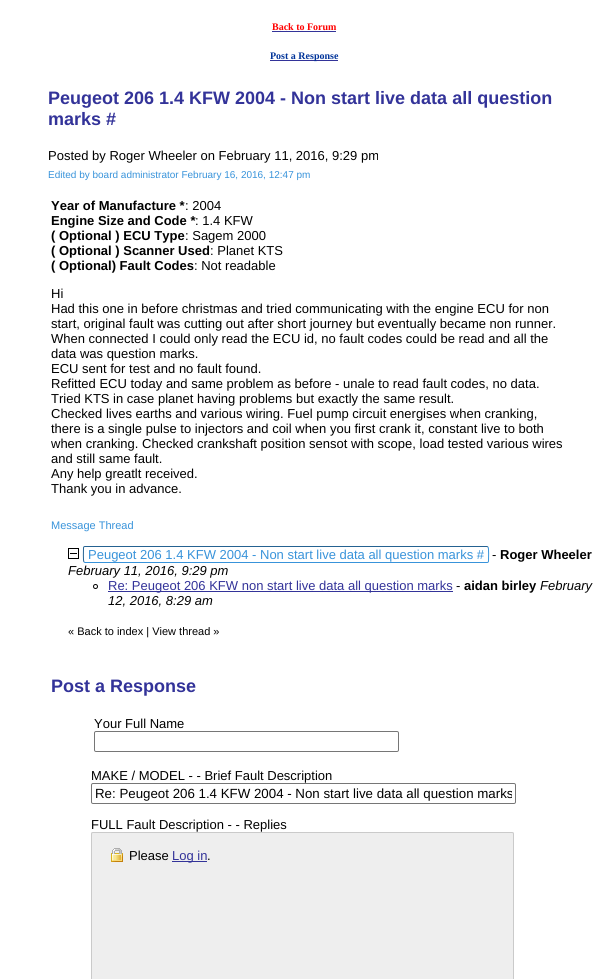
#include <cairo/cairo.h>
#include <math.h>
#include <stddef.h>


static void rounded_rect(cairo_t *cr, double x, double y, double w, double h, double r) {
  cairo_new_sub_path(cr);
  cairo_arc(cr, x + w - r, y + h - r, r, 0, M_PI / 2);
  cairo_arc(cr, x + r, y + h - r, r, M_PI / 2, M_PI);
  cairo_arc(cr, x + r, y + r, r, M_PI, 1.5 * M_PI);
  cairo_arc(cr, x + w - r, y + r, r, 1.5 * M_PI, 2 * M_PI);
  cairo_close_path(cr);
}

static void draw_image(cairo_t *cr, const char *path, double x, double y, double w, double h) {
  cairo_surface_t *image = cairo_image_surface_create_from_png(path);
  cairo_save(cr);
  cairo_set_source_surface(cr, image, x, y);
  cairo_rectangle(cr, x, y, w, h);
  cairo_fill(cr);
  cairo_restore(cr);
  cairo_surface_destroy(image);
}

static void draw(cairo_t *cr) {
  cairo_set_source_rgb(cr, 1, 1, 1);
  cairo_paint(cr);
  cairo_set_source_rgb(cr, 51 / 255.0, 51 / 255.0, 153 / 255.0);
  cairo_rectangle(cr, 272, 31, 64, 1);
  cairo_fill(cr);
  cairo_rectangle(cr, 270, 60, 68, 1);
  cairo_fill(cr);
  draw_image(cr, "images/1.png", 68, 548, 11, 11);
  cairo_new_path(cr);
  cairo_move_to(cr, 488, 547);
  cairo_curve_to(cr, 489, 548, 488.5, 559, 488.5, 561);
  cairo_curve_to(cr, 488.5, 562, 488, 562.5, 487, 562.5);
  cairo_line_to(cr, 85, 562.5);
  cairo_line_to(cr, 84, 562);
  cairo_set_source_rgb(cr, 56 / 255.0, 147 / 255.0, 218 / 255.0);
  cairo_set_line_width(cr, 1);
  cairo_stroke(cr);
  cairo_new_path(cr);
  cairo_move_to(cr, 84, 562);
  cairo_curve_to(cr, 83, 561, 83.5, 550, 83.5, 548);
  cairo_curve_to(cr, 83.5, 547, 84, 546.5, 85, 546.5);
  cairo_line_to(cr, 487, 546.5);
  cairo_line_to(cr, 488, 547);
  cairo_set_source_rgb(cr, 37 / 255.0, 98 / 255.0, 145 / 255.0);
  cairo_stroke(cr);
  cairo_arc(cr, 95.5, 586.5, 2, 0, 2 * M_PI);
  cairo_set_source_rgb(cr, 0, 0, 0);
  cairo_stroke(cr);
  cairo_set_source_rgb(cr, 51 / 255.0, 51 / 255.0, 153 / 255.0);
  cairo_rectangle(cr, 108, 591, 345, 1);
  cairo_fill(cr);
  rounded_rect(cr, 94.5, 731.5, 304, 20, 1.5);
  cairo_set_source_rgb(cr, 118 / 255.0, 118 / 255.0, 118 / 255.0);
  cairo_stroke(cr);
  rounded_rect(cr, 91.5, 783.5, 424, 20, 1.5);
  cairo_stroke(cr);
  cairo_set_source_rgb(cr, 238 / 255.0, 238 / 255.0, 238 / 255.0);
  cairo_rectangle(cr, 91, 832, 423, 147);
  cairo_fill(cr);
  rounded_rect(cr, 91.5, 832.5, 422, 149, 1.5);
  cairo_set_source_rgb(cr, 202 / 255.0, 202 / 255.0, 202 / 255.0);
  cairo_stroke(cr);
  draw_image(cr, "images/2.png", 111, 848, 12, 14);
  cairo_set_source_rgb(cr, 51 / 255.0, 51 / 255.0, 153 / 255.0);
  cairo_rectangle(cr, 172, 861, 35, 1);
  cairo_fill(cr);
  cairo_select_font_face(cr, "Liberation Serif", CAIRO_FONT_SLANT_NORMAL, CAIRO_FONT_WEIGHT_BOLD);
  cairo_set_font_size(cr, 10);
  cairo_set_source_rgb(cr, 1, 0, 0);
  cairo_move_to(cr, 272, 30);
  cairo_show_text(cr, "Back to Forum");
  cairo_set_source_rgb(cr, 0, 51 / 255.0, 153 / 255.0);
  cairo_move_to(cr, 270, 59);
  cairo_show_text(cr, "Post a Response");
  cairo_select_font_face(cr, "Liberation Sans", CAIRO_FONT_SLANT_NORMAL, CAIRO_FONT_WEIGHT_BOLD);
  cairo_set_font_size(cr, 18);
  cairo_set_source_rgb(cr, 51 / 255.0, 51 / 255.0, 153 / 255.0);
  cairo_move_to(cr, 48, 104);
  cairo_show_text(cr, "Peugeot 206 1.4 KFW 2004 - Non start live data all question");
  cairo_move_to(cr, 48, 125);
  cairo_show_text(cr, "marks #");
  cairo_select_font_face(cr, "Liberation Sans", CAIRO_FONT_SLANT_NORMAL, CAIRO_FONT_WEIGHT_NORMAL);
  cairo_set_font_size(cr, 13);
  cairo_set_source_rgb(cr, 0, 0, 0);
  cairo_move_to(cr, 48, 160);
  cairo_show_text(cr, "Posted by Roger Wheeler on February 11, 2016, 9:29 pm");
  cairo_set_font_size(cr, 10);
  cairo_set_source_rgb(cr, 56 / 255.0, 147 / 255.0, 218 / 255.0);
  cairo_move_to(cr, 48, 178);
  cairo_show_text(cr, "Edited by board administrator February 16, 2016, 12:47 pm");
  cairo_select_font_face(cr, "Liberation Sans", CAIRO_FONT_SLANT_NORMAL, CAIRO_FONT_WEIGHT_BOLD);
  cairo_set_font_size(cr, 13);
  cairo_set_source_rgb(cr, 0, 0, 0);
  cairo_move_to(cr, 51, 210);
  cairo_show_text(cr, "Year of Manufacture *");
  cairo_select_font_face(cr, "Liberation Sans", CAIRO_FONT_SLANT_NORMAL, CAIRO_FONT_WEIGHT_NORMAL);
  cairo_move_to(cr, 185, 210);
  cairo_show_text(cr, ": 2004");
  cairo_select_font_face(cr, "Liberation Sans", CAIRO_FONT_SLANT_NORMAL, CAIRO_FONT_WEIGHT_BOLD);
  cairo_move_to(cr, 51, 225);
  cairo_show_text(cr, "Engine Size and Code *");
  cairo_select_font_face(cr, "Liberation Sans", CAIRO_FONT_SLANT_NORMAL, CAIRO_FONT_WEIGHT_NORMAL);
  cairo_move_to(cr, 195, 225);
  cairo_show_text(cr, ": 1.4 KFW");
  cairo_select_font_face(cr, "Liberation Sans", CAIRO_FONT_SLANT_NORMAL, CAIRO_FONT_WEIGHT_BOLD);
  cairo_move_to(cr, 51, 240);
  cairo_show_text(cr, "( Optional ) ECU Type");
  cairo_select_font_face(cr, "Liberation Sans", CAIRO_FONT_SLANT_NORMAL, CAIRO_FONT_WEIGHT_NORMAL);
  cairo_move_to(cr, 185, 240);
  cairo_show_text(cr, ": Sagem 2000");
  cairo_select_font_face(cr, "Liberation Sans", CAIRO_FONT_SLANT_NORMAL, CAIRO_FONT_WEIGHT_BOLD);
  cairo_move_to(cr, 51, 255);
  cairo_show_text(cr, "( Optional ) Scanner Used");
  cairo_select_font_face(cr, "Liberation Sans", CAIRO_FONT_SLANT_NORMAL, CAIRO_FONT_WEIGHT_NORMAL);
  cairo_move_to(cr, 210, 255);
  cairo_show_text(cr, ": Planet KTS");
  cairo_select_font_face(cr, "Liberation Sans", CAIRO_FONT_SLANT_NORMAL, CAIRO_FONT_WEIGHT_BOLD);
  cairo_move_to(cr, 51, 270);
  cairo_show_text(cr, "( Optional) Fault Codes");
  cairo_select_font_face(cr, "Liberation Sans", CAIRO_FONT_SLANT_NORMAL, CAIRO_FONT_WEIGHT_NORMAL);
  cairo_move_to(cr, 194, 270);
  cairo_show_text(cr, ": Not readable");
  cairo_move_to(cr, 51, 298);
  cairo_show_text(cr, "Hi");
  cairo_move_to(cr, 51, 313);
  cairo_show_text(cr, "Had this one in before christmas and tried communicating with the engine ECU for non");
  cairo_move_to(cr, 51, 328);
  cairo_show_text(cr, "start, original fault was cutting out after short journey but eventually became non runner.");
  cairo_move_to(cr, 51, 343);
  cairo_show_text(cr, "When connected I could only read the ECU id, no fault codes could be read and all the");
  cairo_move_to(cr, 51, 358);
  cairo_show_text(cr, "data was question marks.");
  cairo_move_to(cr, 51, 373);
  cairo_show_text(cr, "ECU sent for test and no fault found.");
  cairo_move_to(cr, 51, 388);
  cairo_show_text(cr, "Refitted ECU today and same problem as before - unale to read fault codes, no data.");
  cairo_move_to(cr, 51, 403);
  cairo_show_text(cr, "Tried KTS in case planet having problems but exactly the same result.");
  cairo_move_to(cr, 51, 418);
  cairo_show_text(cr, "Checked lives earths and various wiring. Fuel pump circuit energises when cranking,");
  cairo_move_to(cr, 51, 433);
  cairo_show_text(cr, "there is a single pulse to injectors and coil when you first crank it, constant live to both");
  cairo_move_to(cr, 51, 448);
  cairo_show_text(cr, "when cranking. Checked crankshaft position sensot with scope, load tested various wires");
  cairo_move_to(cr, 51, 463);
  cairo_show_text(cr, "and still same fault.");
  cairo_move_to(cr, 51, 478);
  cairo_show_text(cr, "Any help greatlt received.");
  cairo_move_to(cr, 51, 493);
  cairo_show_text(cr, "Thank you in advance.");
  cairo_set_font_size(cr, 11);
  cairo_set_source_rgb(cr, 56 / 255.0, 147 / 255.0, 218 / 255.0);
  cairo_move_to(cr, 51, 529);
  cairo_show_text(cr, "Message Thread");
  cairo_set_font_size(cr, 13);
  cairo_move_to(cr, 88, 559);
  cairo_show_text(cr, "Peugeot 206 1.4 KFW 2004 - Non start live data all question marks #");
  cairo_set_source_rgb(cr, 0, 0, 0);
  cairo_move_to(cr, 492, 559);
  cairo_show_text(cr, "-");
  cairo_select_font_face(cr, "Liberation Sans", CAIRO_FONT_SLANT_NORMAL, CAIRO_FONT_WEIGHT_BOLD);
  cairo_move_to(cr, 500, 559);
  cairo_show_text(cr, "Roger Wheeler");
  cairo_select_font_face(cr, "Liberation Sans", CAIRO_FONT_SLANT_ITALIC, CAIRO_FONT_WEIGHT_NORMAL);
  cairo_move_to(cr, 68, 575);
  cairo_show_text(cr, "February 11, 2016, 9:29 pm");
  cairo_select_font_face(cr, "Liberation Sans", CAIRO_FONT_SLANT_NORMAL, CAIRO_FONT_WEIGHT_NORMAL);
  cairo_set_source_rgb(cr, 51 / 255.0, 51 / 255.0, 153 / 255.0);
  cairo_move_to(cr, 108, 590);
  cairo_show_text(cr, "Re: Peugeot 206 KFW non start live data all question marks");
  cairo_set_source_rgb(cr, 0, 0, 0);
  cairo_move_to(cr, 456, 590);
  cairo_show_text(cr, "-");
  cairo_select_font_face(cr, "Liberation Sans", CAIRO_FONT_SLANT_NORMAL, CAIRO_FONT_WEIGHT_BOLD);
  cairo_move_to(cr, 464, 590);
  cairo_show_text(cr, "aidan birley");
  cairo_select_font_face(cr, "Liberation Sans", CAIRO_FONT_SLANT_ITALIC, CAIRO_FONT_WEIGHT_NORMAL);
  cairo_move_to(cr, 540, 590);
  cairo_show_text(cr, "February");
  cairo_move_to(cr, 108, 605);
  cairo_show_text(cr, "12, 2016, 8:29 am");
  cairo_select_font_face(cr, "Liberation Sans", CAIRO_FONT_SLANT_NORMAL, CAIRO_FONT_WEIGHT_NORMAL);
  cairo_set_font_size(cr, 11);
  cairo_move_to(cr, 68, 635);
  cairo_show_text(cr, "« Back to index | View thread »");
  cairo_select_font_face(cr, "Liberation Sans", CAIRO_FONT_SLANT_NORMAL, CAIRO_FONT_WEIGHT_BOLD);
  cairo_set_font_size(cr, 18);
  cairo_set_source_rgb(cr, 51 / 255.0, 51 / 255.0, 153 / 255.0);
  cairo_move_to(cr, 51, 692);
  cairo_show_text(cr, "Post a Response");
  cairo_select_font_face(cr, "Liberation Sans", CAIRO_FONT_SLANT_NORMAL, CAIRO_FONT_WEIGHT_NORMAL);
  cairo_set_font_size(cr, 13);
  cairo_set_source_rgb(cr, 0, 0, 0);
  cairo_move_to(cr, 94, 728);
  cairo_show_text(cr, "Your Full Name");
  cairo_move_to(cr, 91, 780);
  cairo_show_text(cr, "MAKE / MODEL - - Brief Fault Description");
  cairo_save(cr);
  cairo_rectangle(cr, 95, 786, 417, 15);
  cairo_clip(cr);
  cairo_set_font_size(cr, 13.3);
  cairo_move_to(cr, 95, 798);
  cairo_show_text(cr, "Re: Peugeot 206 1.4 KFW 2004 - Non start live data all question marks");
  cairo_restore(cr);
  cairo_move_to(cr, 91, 829);
  cairo_show_text(cr, "FULL Fault Description - - Replies");
  cairo_move_to(cr, 129, 860);
  cairo_show_text(cr, "Please");
  cairo_set_source_rgb(cr, 51 / 255.0, 51 / 255.0, 153 / 255.0);
  cairo_move_to(cr, 172, 860);
  cairo_show_text(cr, "Log in");
  cairo_set_source_rgb(cr, 0, 0, 0);
  cairo_move_to(cr, 207, 860);
  cairo_show_text(cr, ".");
}

int main(void) {
  cairo_surface_t *surface = cairo_image_surface_create(CAIRO_FORMAT_RGB24, 608, 979);
  cairo_t *cr = cairo_create(surface);
  cairo_font_options_t *options = cairo_font_options_create();
  cairo_font_options_set_hint_metrics(options, CAIRO_HINT_METRICS_OFF);
  cairo_font_options_set_hint_style(options, CAIRO_HINT_STYLE_NONE);
  cairo_set_font_options(cr, options);
  cairo_set_miter_limit(cr, 4);
  draw(cr);
  cairo_surface_write_to_png(surface, "out.png");
  cairo_font_options_destroy(options);
  cairo_destroy(cr);
  cairo_surface_destroy(surface);
  return 0;
}
